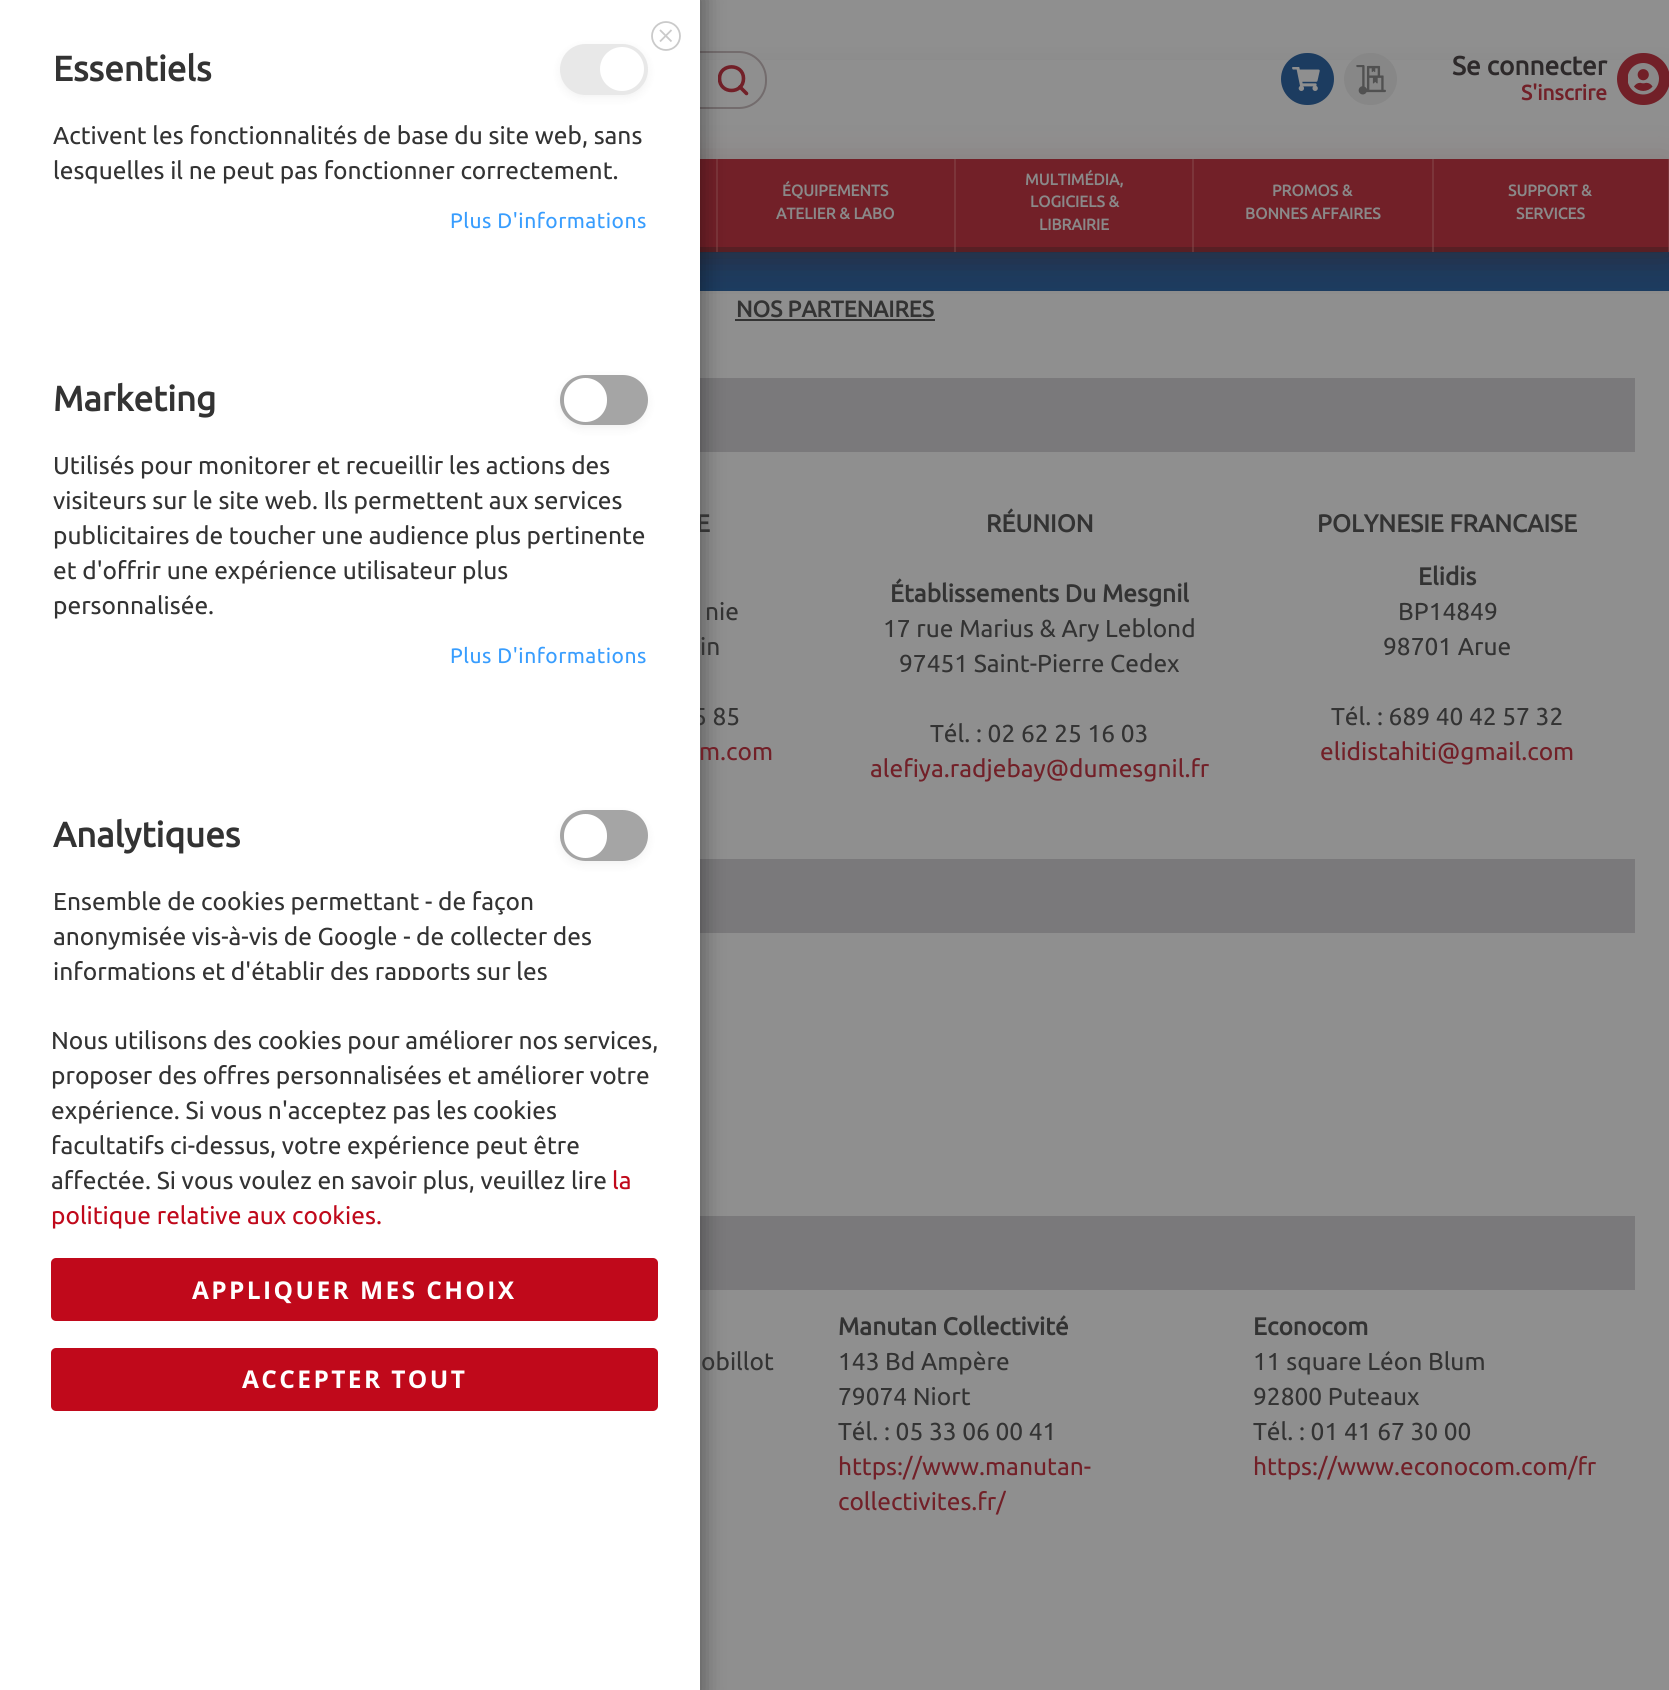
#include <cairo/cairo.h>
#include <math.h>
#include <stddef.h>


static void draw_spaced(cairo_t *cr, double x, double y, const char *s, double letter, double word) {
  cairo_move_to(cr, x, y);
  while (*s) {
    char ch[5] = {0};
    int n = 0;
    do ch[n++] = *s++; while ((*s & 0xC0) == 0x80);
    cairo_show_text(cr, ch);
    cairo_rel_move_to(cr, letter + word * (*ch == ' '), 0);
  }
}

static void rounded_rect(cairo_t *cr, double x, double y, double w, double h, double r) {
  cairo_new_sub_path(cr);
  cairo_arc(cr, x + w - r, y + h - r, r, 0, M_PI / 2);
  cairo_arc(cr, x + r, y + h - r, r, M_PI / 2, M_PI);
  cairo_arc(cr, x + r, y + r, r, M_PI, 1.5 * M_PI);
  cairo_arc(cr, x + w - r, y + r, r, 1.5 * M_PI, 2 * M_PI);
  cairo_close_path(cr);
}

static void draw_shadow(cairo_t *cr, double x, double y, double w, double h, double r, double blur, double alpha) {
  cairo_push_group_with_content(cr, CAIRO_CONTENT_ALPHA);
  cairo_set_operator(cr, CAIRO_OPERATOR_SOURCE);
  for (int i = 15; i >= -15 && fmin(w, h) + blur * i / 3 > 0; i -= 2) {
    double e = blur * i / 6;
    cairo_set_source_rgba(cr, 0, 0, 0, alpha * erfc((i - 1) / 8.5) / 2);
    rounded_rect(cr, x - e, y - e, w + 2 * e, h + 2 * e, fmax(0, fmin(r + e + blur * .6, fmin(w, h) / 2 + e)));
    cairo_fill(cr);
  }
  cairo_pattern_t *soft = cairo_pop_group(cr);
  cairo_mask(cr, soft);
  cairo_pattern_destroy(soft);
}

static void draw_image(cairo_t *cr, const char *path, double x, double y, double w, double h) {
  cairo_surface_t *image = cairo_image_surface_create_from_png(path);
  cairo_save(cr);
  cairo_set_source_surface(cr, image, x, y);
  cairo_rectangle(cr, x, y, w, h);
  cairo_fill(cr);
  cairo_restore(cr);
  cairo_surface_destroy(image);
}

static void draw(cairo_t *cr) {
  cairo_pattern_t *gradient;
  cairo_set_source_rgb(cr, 143 / 255.0, 143 / 255.0, 143 / 255.0);
  cairo_paint(cr);
  cairo_set_source_rgb(cr, 28 / 255.0, 60 / 255.0, 96 / 255.0);
  cairo_rectangle(cr, 700, 252, 969, 39);
  cairo_fill(cr);
  cairo_set_source_rgb(cr, 31 / 255.0, 30 / 255.0, 30 / 255.0);
  draw_shadow(cr, 2, 91, 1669, 159, 0, 17.5, 0.6);
  cairo_set_source_rgb(cr, 143 / 255.0, 143 / 255.0, 143 / 255.0);
  cairo_rectangle(cr, 700, 60, 969, 99);
  cairo_fill(cr);
  rounded_rect(cr, 330, 52, 436, 56, 27);
  cairo_set_source_rgb(cr, 115 / 255.0, 108 / 255.0, 109 / 255.0);
  cairo_stroke(cr);
  cairo_save(cr);
  cairo_rectangle(cr, 718, 65, 31, 31);
  cairo_clip(cr);
  cairo_new_path(cr);
  cairo_move_to(cr, 743.5, 78.5);
  cairo_curve_to(cr, 743.5, 94.5, 719.5, 94.5, 719.5, 78.5);
  cairo_curve_to(cr, 719.5, 63, 743.5, 63, 743.5, 78.5);
  cairo_close_path(cr);
  cairo_set_source_rgb(cr, 114 / 255.0, 32 / 255.0, 40 / 255.0);
  cairo_set_line_width(cr, 3.6);
  cairo_set_line_cap(cr, CAIRO_LINE_CAP_ROUND);
  cairo_set_line_join(cr, CAIRO_LINE_JOIN_ROUND);
  cairo_stroke(cr);
  cairo_restore(cr);
  cairo_set_source_rgb(cr, 99 / 255.0, 31 / 255.0, 31 / 255.0);
  draw_shadow(cr, -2, 163, 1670, 93, 0, 17.5, 0.2);
  gradient = cairo_pattern_create_linear(835, 159, 835, 252);
  cairo_pattern_add_color_stop_rgba(gradient, 0, 114 / 255.0, 32 / 255.0, 40 / 255.0, 1);
  cairo_pattern_add_color_stop_rgba(gradient, 1, 114 / 255.0, 32 / 255.0, 40 / 255.0, 1);
  cairo_set_source(cr, gradient);
  cairo_pattern_destroy(gradient);
  cairo_rectangle(cr, 700, 159, 969, 88);
  cairo_fill(cr);
  cairo_set_source_rgb(cr, 88 / 255.0, 31 / 255.0, 36 / 255.0);
  cairo_rectangle(cr, 700, 247, 969, 5);
  cairo_fill(cr);
  cairo_set_source_rgba(cr, 137 / 255.0, 82 / 255.0, 82 / 255.0, 0.43);
  cairo_rectangle(cr, 716, 159, 2, 93);
  cairo_fill(cr);
  cairo_set_source_rgb(cr, 51 / 255.0, 51 / 255.0, 51 / 255.0);
  cairo_rectangle(cr, 735, 319, 200, 2);
  cairo_fill(cr);
  cairo_set_source_rgb(cr, 122 / 255.0, 121 / 255.0, 123 / 255.0);
  cairo_rectangle(cr, 700, 378, 935, 74);
  cairo_fill(cr);
  cairo_rectangle(cr, 700, 859, 935, 74);
  cairo_fill(cr);
  cairo_rectangle(cr, 700, 1216, 935, 74);
  cairo_fill(cr);
  cairo_set_source_rgb(cr, 0, 0, 0);
  draw_shadow(cr, -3, -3, 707, 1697, 0, 10.5, 0.35);
  cairo_new_path(cr);
  cairo_move_to(cr, 746.5, 93.5);
  cairo_line_to(cr, 740, 87);
  cairo_set_source_rgb(cr, 114 / 255.0, 32 / 255.0, 40 / 255.0);
  cairo_set_line_width(cr, 3.6);
  cairo_set_line_cap(cr, CAIRO_LINE_CAP_ROUND);
  cairo_set_line_join(cr, CAIRO_LINE_JOIN_ROUND);
  cairo_stroke(cr);
  cairo_set_source_rgb(cr, 28 / 255.0, 60 / 255.0, 96 / 255.0);
  rounded_rect(cr, 1281, 53, 53, 52, 26);
  cairo_fill(cr);
  draw_image(cr, "images/1.png", 1292, 67, 28, 24);
  cairo_set_source_rgb(cr, 135 / 255.0, 135 / 255.0, 135 / 255.0);
  rounded_rect(cr, 1344, 53, 53, 52, 26);
  cairo_fill(cr);
  draw_image(cr, "images/2.png", 1356, 65, 30, 30);
  cairo_set_source_rgb(cr, 114 / 255.0, 32 / 255.0, 40 / 255.0);
  rounded_rect(cr, 1617, 53, 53, 52, 26);
  cairo_fill(cr);
  draw_image(cr, "images/3.png", 1628, 63, 31, 32);
  cairo_set_source_rgba(cr, 137 / 255.0, 82 / 255.0, 82 / 255.0, 0.43);
  cairo_rectangle(cr, 954, 159, 2, 93);
  cairo_fill(cr);
  cairo_rectangle(cr, 1192, 159, 2, 93);
  cairo_fill(cr);
  cairo_rectangle(cr, 1668, 159, 1, 93);
  cairo_fill(cr);
  cairo_rectangle(cr, 1432, 159, 2, 93);
  cairo_fill(cr);
  cairo_select_font_face(cr, "Ubuntu", CAIRO_FONT_SLANT_NORMAL, CAIRO_FONT_WEIGHT_BOLD);
  cairo_set_font_size(cr, 26.25);
  cairo_set_source_rgb(cr, 45 / 255.0, 41 / 255.0, 42 / 255.0);
  cairo_move_to(cr, 1452, 75);
  cairo_show_text(cr, "Se connecter");
  cairo_set_font_size(cr, 21);
  cairo_set_source_rgb(cr, 114 / 255.0, 32 / 255.0, 40 / 255.0);
  cairo_move_to(cr, 1521, 100);
  cairo_show_text(cr, "S'inscrire");
  cairo_set_font_size(cr, 15.75);
  cairo_set_source_rgb(cr, 138 / 255.0, 137 / 255.0, 137 / 255.0);
  cairo_move_to(cr, 782, 196);
  cairo_show_text(cr, "ÉQUIPEMENTS");
  cairo_move_to(cr, 776, 219);
  cairo_show_text(cr, "ATELIER & LABO");
  cairo_move_to(cr, 1025, 185);
  cairo_show_text(cr, "MULTIMÉDIA,");
  cairo_move_to(cr, 1030, 207);
  cairo_show_text(cr, "LOGICIELS &");
  cairo_move_to(cr, 1039, 230);
  cairo_show_text(cr, "LIBRAIRIE");
  cairo_move_to(cr, 1272, 196);
  cairo_show_text(cr, "PROMOS &");
  cairo_move_to(cr, 1245, 219);
  cairo_show_text(cr, "BONNES AFFAIRES");
  cairo_move_to(cr, 1508, 196);
  cairo_show_text(cr, "SUPPORT &");
  cairo_move_to(cr, 1516, 219);
  cairo_show_text(cr, "SERVICES");
  cairo_set_font_size(cr, 22.75);
  cairo_set_source_rgb(cr, 51 / 255.0, 51 / 255.0, 51 / 255.0);
  cairo_move_to(cr, 736, 317);
  cairo_show_text(cr, "NOS PARTENAIRES");
  cairo_set_font_size(cr, 24.5);
  cairo_move_to(cr, 696, 532);
  cairo_show_text(cr, "E");
  cairo_select_font_face(cr, "Ubuntu", CAIRO_FONT_SLANT_NORMAL, CAIRO_FONT_WEIGHT_NORMAL);
  cairo_move_to(cr, 705, 620);
  cairo_show_text(cr, "nie");
  cairo_move_to(cr, 700, 655);
  cairo_show_text(cr, "in");
  cairo_move_to(cr, 693, 725);
  cairo_show_text(cr, "5 85");
  cairo_set_source_rgb(cr, 1, 1, 1);
  cairo_rectangle(cr, 0, 0, 700, 1690);
  cairo_fill(cr);
  cairo_set_source_rgb(cr, 0, 0, 0);
  draw_shadow(cr, 560, 814, 88, 51, 25.5, 4.5, 0.05);
  cairo_set_source_rgb(cr, 165 / 255.0, 165 / 255.0, 165 / 255.0);
  rounded_rect(cr, 560, 810, 88, 51, 25.5);
  cairo_fill(cr);
  cairo_set_source_rgb(cr, 1, 1, 1);
  rounded_rect(cr, 564, 814, 43, 44, 21.5);
  cairo_fill(cr);
  cairo_set_source_rgb(cr, 0, 0, 0);
  draw_shadow(cr, 560, 378, 88, 51, 25.5, 4.5, 0.05);
  cairo_set_source_rgb(cr, 165 / 255.0, 165 / 255.0, 165 / 255.0);
  rounded_rect(cr, 560, 375, 88, 50, 25);
  cairo_fill(cr);
  cairo_set_source_rgb(cr, 1, 1, 1);
  rounded_rect(cr, 564, 378, 43, 44, 21.5);
  cairo_fill(cr);
  cairo_arc(cr, 666, 36, 14, 0, 2 * M_PI);
  cairo_set_source_rgb(cr, 202 / 255.0, 202 / 255.0, 202 / 255.0);
  cairo_set_line_width(cr, 1.8);
  cairo_set_line_cap(cr, CAIRO_LINE_CAP_BUTT);
  cairo_set_line_join(cr, CAIRO_LINE_JOIN_MITER);
  cairo_stroke(cr);
  cairo_new_path(cr);
  cairo_move_to(cr, 660, 30);
  cairo_line_to(cr, 671.5, 41.5);
  cairo_move_to(cr, 671.5, 30);
  cairo_line_to(cr, 660, 41.5);
  cairo_stroke(cr);
  cairo_set_source_rgb(cr, 0, 0, 0);
  draw_shadow(cr, 560, 47, 88, 51, 25.5, 4.5, 0.05);
  cairo_set_source_rgb(cr, 232 / 255.0, 232 / 255.0, 232 / 255.0);
  rounded_rect(cr, 560, 44, 88, 51, 25.5);
  cairo_fill(cr);
  cairo_set_source_rgb(cr, 1, 1, 1);
  cairo_arc(cr, 622, 69, 22, 0, 2 * M_PI);
  cairo_fill(cr);
  cairo_save(cr);
  cairo_rectangle(cr, 9, 0, 691, 980);
  cairo_clip(cr);
  cairo_set_source_rgb(cr, 51 / 255.0, 51 / 255.0, 51 / 255.0);
  cairo_move_to(cr, 53, 980);
  cairo_show_text(cr, "informations et d'établir des rapports sur les");
  cairo_restore(cr);
  cairo_set_source_rgb(cr, 51 / 255.0, 51 / 255.0, 51 / 255.0);
  cairo_move_to(cr, 53, 945);
  cairo_show_text(cr, "anonymisée vis-à-vis de Google - de collecter des");
  cairo_move_to(cr, 53, 910);
  cairo_show_text(cr, "Ensemble de cookies permettant - de façon");
  cairo_select_font_face(cr, "Ubuntu", CAIRO_FONT_SLANT_NORMAL, CAIRO_FONT_WEIGHT_BOLD);
  cairo_set_font_size(cr, 35);
  cairo_move_to(cr, 53, 847);
  cairo_show_text(cr, "Analytiques");
  cairo_select_font_face(cr, "Ubuntu", CAIRO_FONT_SLANT_NORMAL, CAIRO_FONT_WEIGHT_NORMAL);
  cairo_set_font_size(cr, 21);
  cairo_set_source_rgb(cr, 56 / 255.0, 157 / 255.0, 254 / 255.0);
  draw_spaced(cr, 450, 663, "Plus D'informations", 0.5, 0);
  cairo_set_font_size(cr, 24.5);
  cairo_set_source_rgb(cr, 51 / 255.0, 51 / 255.0, 51 / 255.0);
  cairo_move_to(cr, 53, 614);
  cairo_show_text(cr, "personnalisée.");
  cairo_move_to(cr, 53, 579);
  cairo_show_text(cr, "et d'offrir une expérience utilisateur plus");
  cairo_move_to(cr, 53, 544);
  cairo_show_text(cr, "publicitaires de toucher une audience plus pertinente");
  cairo_move_to(cr, 53, 509);
  cairo_show_text(cr, "visiteurs sur le site web. Ils permettent aux services");
  cairo_move_to(cr, 53, 474);
  cairo_show_text(cr, "Utilisés pour monitorer et recueillir les actions des");
  cairo_select_font_face(cr, "Ubuntu", CAIRO_FONT_SLANT_NORMAL, CAIRO_FONT_WEIGHT_BOLD);
  cairo_set_font_size(cr, 35);
  cairo_move_to(cr, 53, 411);
  cairo_show_text(cr, "Marketing");
  cairo_select_font_face(cr, "Ubuntu", CAIRO_FONT_SLANT_NORMAL, CAIRO_FONT_WEIGHT_NORMAL);
  cairo_set_font_size(cr, 21);
  cairo_set_source_rgb(cr, 56 / 255.0, 157 / 255.0, 254 / 255.0);
  draw_spaced(cr, 450, 228, "Plus D'informations", 0.5, 0);
  cairo_set_font_size(cr, 24.5);
  cairo_set_source_rgb(cr, 51 / 255.0, 51 / 255.0, 51 / 255.0);
  cairo_move_to(cr, 53, 179);
  cairo_show_text(cr, "lesquelles il ne peut pas fonctionner correctement.");
  cairo_move_to(cr, 53, 144);
  cairo_show_text(cr, "Activent les fonctionnalités de base du site web, sans");
  cairo_select_font_face(cr, "Ubuntu", CAIRO_FONT_SLANT_NORMAL, CAIRO_FONT_WEIGHT_BOLD);
  cairo_set_font_size(cr, 35);
  cairo_move_to(cr, 53, 81);
  cairo_show_text(cr, "Essentiels");
  cairo_set_source_rgb(cr, 192 / 255.0, 9 / 255.0, 27 / 255.0);
  rounded_rect(cr, 51, 1348, 607, 63, 5);
  cairo_fill(cr);
  cairo_select_font_face(cr, "Open Sans", CAIRO_FONT_SLANT_NORMAL, CAIRO_FONT_WEIGHT_BOLD);
  cairo_set_font_size(cr, 24.5);
  cairo_set_source_rgb(cr, 1, 1, 1);
  draw_spaced(cr, 242, 1388, "ACCEPTER TOUT", 2.4, 0);
  cairo_set_source_rgb(cr, 192 / 255.0, 9 / 255.0, 27 / 255.0);
  rounded_rect(cr, 51, 1258, 607, 63, 5);
  cairo_fill(cr);
  cairo_set_source_rgb(cr, 1, 1, 1);
  draw_spaced(cr, 192, 1299, "APPLIQUER MES CHOIX", 2.4, 0);
  cairo_select_font_face(cr, "Ubuntu", CAIRO_FONT_SLANT_NORMAL, CAIRO_FONT_WEIGHT_NORMAL);
  cairo_set_source_rgb(cr, 192 / 255.0, 9 / 255.0, 27 / 255.0);
  cairo_move_to(cr, 51, 1224);
  cairo_show_text(cr, "politique relative aux cookies.");
  cairo_move_to(cr, 612, 1189);
  cairo_show_text(cr, "la");
  cairo_set_source_rgb(cr, 51 / 255.0, 51 / 255.0, 51 / 255.0);
  cairo_move_to(cr, 51, 1189);
  cairo_show_text(cr, "affectée. Si vous voulez en savoir plus, veuillez lire");
  cairo_move_to(cr, 51, 1154);
  cairo_show_text(cr, "facultatifs ci-dessus, votre expérience peut être");
  cairo_move_to(cr, 51, 1119);
  cairo_show_text(cr, "expérience. Si vous n'acceptez pas les cookies");
  cairo_move_to(cr, 51, 1084);
  cairo_show_text(cr, "proposer des offres personnalisées et améliorer votre");
  cairo_move_to(cr, 51, 1049);
  cairo_show_text(cr, "Nous utilisons des cookies pour améliorer nos services,");
  cairo_set_source_rgb(cr, 114 / 255.0, 32 / 255.0, 40 / 255.0);
  cairo_move_to(cr, 699, 760);
  cairo_show_text(cr, "m.com");
  cairo_select_font_face(cr, "Ubuntu", CAIRO_FONT_SLANT_NORMAL, CAIRO_FONT_WEIGHT_BOLD);
  cairo_set_source_rgb(cr, 51 / 255.0, 51 / 255.0, 51 / 255.0);
  cairo_move_to(cr, 986, 532);
  cairo_show_text(cr, "RÉUNION");
  cairo_move_to(cr, 890, 602);
  cairo_show_text(cr, "Établissements Du Mesgnil");
  cairo_select_font_face(cr, "Ubuntu", CAIRO_FONT_SLANT_NORMAL, CAIRO_FONT_WEIGHT_NORMAL);
  cairo_move_to(cr, 883, 637);
  cairo_show_text(cr, "17 rue Marius & Ary Leblond");
  cairo_move_to(cr, 899, 672);
  cairo_show_text(cr, "97451 Saint-Pierre Cedex");
  cairo_move_to(cr, 930, 742);
  cairo_show_text(cr, "Tél. : 02 62 25 16 03");
  cairo_set_source_rgb(cr, 114 / 255.0, 32 / 255.0, 40 / 255.0);
  cairo_move_to(cr, 870, 777);
  cairo_show_text(cr, "alefiya.radjebay@dumesgnil.fr");
  cairo_select_font_face(cr, "Ubuntu", CAIRO_FONT_SLANT_NORMAL, CAIRO_FONT_WEIGHT_BOLD);
  cairo_set_source_rgb(cr, 51 / 255.0, 51 / 255.0, 51 / 255.0);
  cairo_move_to(cr, 1317, 532);
  cairo_show_text(cr, "POLYNESIE FRANCAISE");
  cairo_move_to(cr, 1418, 585);
  cairo_show_text(cr, "Elidis");
  cairo_select_font_face(cr, "Ubuntu", CAIRO_FONT_SLANT_NORMAL, CAIRO_FONT_WEIGHT_NORMAL);
  cairo_move_to(cr, 1398, 620);
  cairo_show_text(cr, "BP14849");
  cairo_move_to(cr, 1383, 655);
  cairo_show_text(cr, "98701 Arue");
  cairo_move_to(cr, 1331, 725);
  cairo_show_text(cr, "Tél. : 689 40 42 57 32");
  cairo_set_source_rgb(cr, 114 / 255.0, 32 / 255.0, 40 / 255.0);
  cairo_move_to(cr, 1320, 760);
  cairo_show_text(cr, "elidistahiti@gmail.com");
  cairo_set_source_rgb(cr, 51 / 255.0, 51 / 255.0, 51 / 255.0);
  cairo_move_to(cr, 701, 1370);
  cairo_show_text(cr, "obillot");
  cairo_select_font_face(cr, "Ubuntu", CAIRO_FONT_SLANT_NORMAL, CAIRO_FONT_WEIGHT_BOLD);
  cairo_move_to(cr, 838, 1335);
  cairo_show_text(cr, "Manutan Collectivité");
  cairo_select_font_face(cr, "Ubuntu", CAIRO_FONT_SLANT_NORMAL, CAIRO_FONT_WEIGHT_NORMAL);
  cairo_move_to(cr, 838, 1370);
  cairo_show_text(cr, "143 Bd Ampère");
  cairo_move_to(cr, 838, 1405);
  cairo_show_text(cr, "79074 Niort");
  cairo_move_to(cr, 838, 1440);
  cairo_show_text(cr, "Tél. : 05 33 06 00 41");
  cairo_set_source_rgb(cr, 114 / 255.0, 32 / 255.0, 40 / 255.0);
  cairo_move_to(cr, 838, 1475);
  cairo_show_text(cr, "https://www.manutan-");
  cairo_move_to(cr, 838, 1510);
  cairo_show_text(cr, "collectivites.fr/");
  cairo_select_font_face(cr, "Ubuntu", CAIRO_FONT_SLANT_NORMAL, CAIRO_FONT_WEIGHT_BOLD);
  cairo_set_source_rgb(cr, 51 / 255.0, 51 / 255.0, 51 / 255.0);
  cairo_move_to(cr, 1253, 1335);
  cairo_show_text(cr, "Econocom");
  cairo_select_font_face(cr, "Ubuntu", CAIRO_FONT_SLANT_NORMAL, CAIRO_FONT_WEIGHT_NORMAL);
  cairo_move_to(cr, 1253, 1370);
  cairo_show_text(cr, "11 square Léon Blum");
  cairo_move_to(cr, 1253, 1405);
  cairo_show_text(cr, "92800 Puteaux");
  cairo_move_to(cr, 1253, 1440);
  cairo_show_text(cr, "Tél. : 01 41 67 30 00");
  cairo_set_source_rgb(cr, 114 / 255.0, 32 / 255.0, 40 / 255.0);
  cairo_move_to(cr, 1253, 1475);
  cairo_show_text(cr, "https://www.econocom.com/fr");
}

int main(void) {
  cairo_surface_t *surface = cairo_image_surface_create(CAIRO_FORMAT_RGB24, 1669, 1690);
  cairo_t *cr = cairo_create(surface);
  cairo_font_options_t *options = cairo_font_options_create();
  cairo_font_options_set_hint_metrics(options, CAIRO_HINT_METRICS_OFF);
  cairo_font_options_set_hint_style(options, CAIRO_HINT_STYLE_NONE);
  cairo_set_font_options(cr, options);
  cairo_set_miter_limit(cr, 4);
  draw(cr);
  cairo_surface_write_to_png(surface, "out.png");
  cairo_font_options_destroy(options);
  cairo_destroy(cr);
  cairo_surface_destroy(surface);
  return 0;
}
